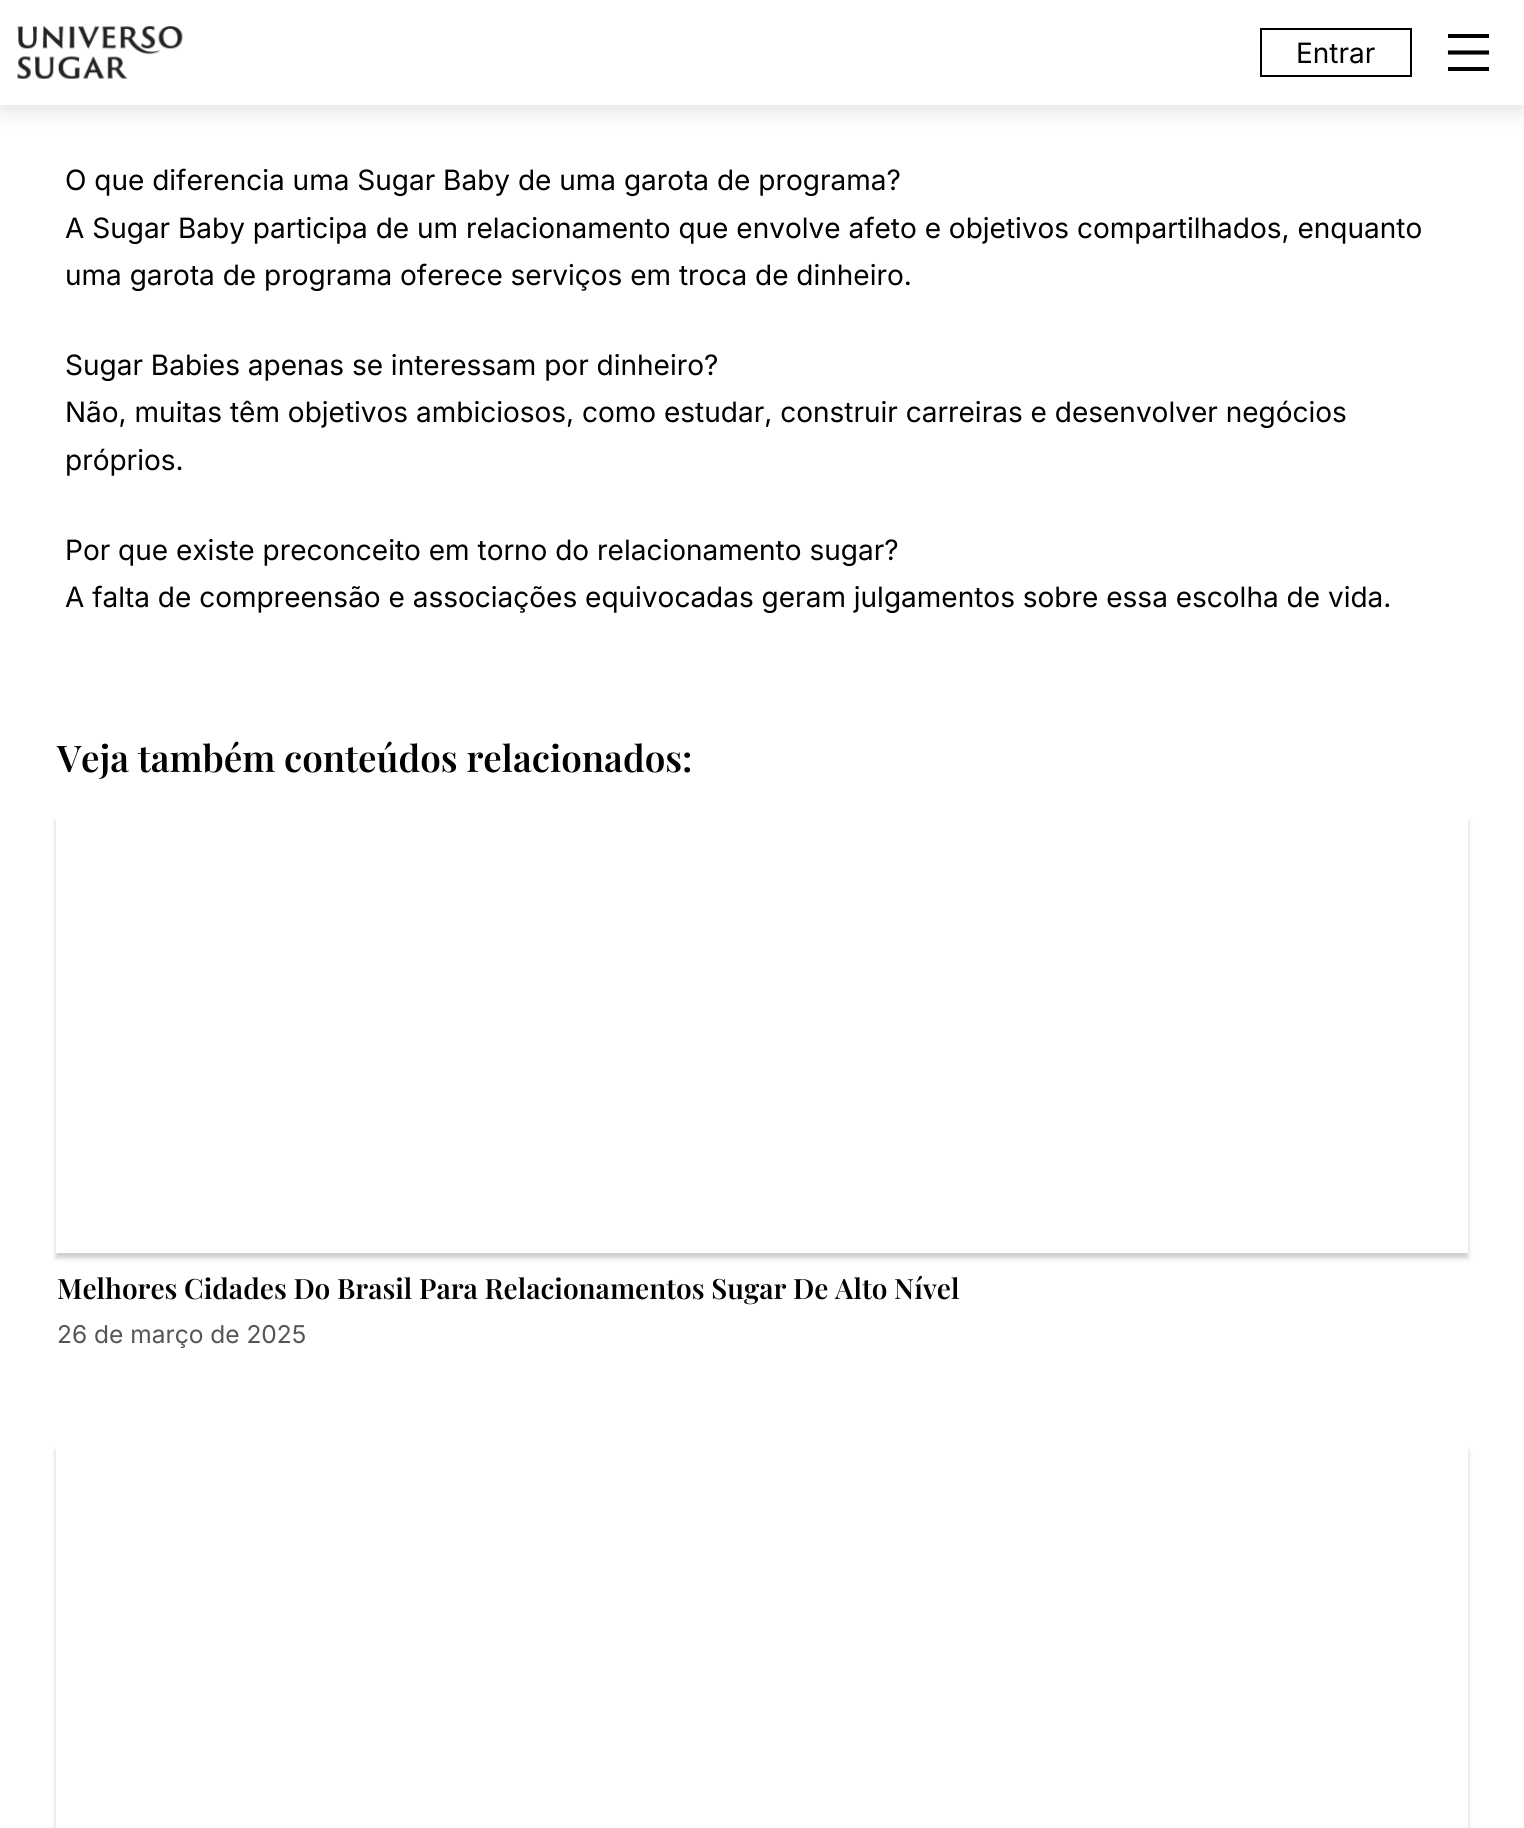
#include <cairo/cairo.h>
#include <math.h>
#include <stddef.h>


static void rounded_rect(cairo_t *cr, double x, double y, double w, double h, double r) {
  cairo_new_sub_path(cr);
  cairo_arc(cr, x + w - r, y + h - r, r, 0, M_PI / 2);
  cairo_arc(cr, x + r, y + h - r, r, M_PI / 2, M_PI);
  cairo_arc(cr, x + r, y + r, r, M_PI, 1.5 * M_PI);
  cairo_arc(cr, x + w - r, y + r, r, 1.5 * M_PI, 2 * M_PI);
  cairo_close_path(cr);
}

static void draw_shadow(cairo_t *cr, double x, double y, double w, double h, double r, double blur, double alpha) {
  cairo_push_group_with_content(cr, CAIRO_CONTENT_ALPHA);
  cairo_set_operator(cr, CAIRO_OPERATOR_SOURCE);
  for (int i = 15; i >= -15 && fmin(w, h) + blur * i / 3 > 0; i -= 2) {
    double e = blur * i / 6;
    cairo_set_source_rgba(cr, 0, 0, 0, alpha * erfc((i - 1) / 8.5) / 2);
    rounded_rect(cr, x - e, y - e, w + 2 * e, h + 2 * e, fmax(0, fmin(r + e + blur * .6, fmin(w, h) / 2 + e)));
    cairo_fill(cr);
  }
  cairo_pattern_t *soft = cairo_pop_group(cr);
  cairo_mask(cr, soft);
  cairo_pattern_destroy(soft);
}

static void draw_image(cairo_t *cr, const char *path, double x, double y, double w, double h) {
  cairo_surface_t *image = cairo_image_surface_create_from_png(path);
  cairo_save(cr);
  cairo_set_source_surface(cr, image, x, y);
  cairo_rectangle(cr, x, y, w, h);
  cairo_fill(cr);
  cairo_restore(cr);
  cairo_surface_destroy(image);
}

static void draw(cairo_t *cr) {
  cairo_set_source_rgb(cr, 1, 1, 1);
  cairo_paint(cr);
  cairo_set_source_rgb(cr, 0, 0, 0);
  draw_shadow(cr, 0, 7, 1524, 105, 0, 9, 0.1);
  cairo_set_source_rgb(cr, 1, 1, 1);
  cairo_rectangle(cr, 0, 0, 1524, 105);
  cairo_fill(cr);
  draw_image(cr, "images/1.png", 17, 26, 166, 53);
  cairo_rectangle(cr, 1261, 29, 150, 47);
  cairo_set_source_rgb(cr, 0, 0, 0);
  cairo_stroke(cr);
  cairo_rectangle(cr, 1448, 67, 41, 4);
  cairo_fill(cr);
  cairo_new_path(cr);
  cairo_move_to(cr, 1450, 52.5);
  cairo_line_to(cr, 1487, 52.5);
  cairo_set_line_width(cr, 4.1);
  cairo_set_line_cap(cr, CAIRO_LINE_CAP_SQUARE);
  cairo_stroke(cr);
  cairo_rectangle(cr, 1448, 34, 41, 4);
  cairo_fill(cr);
  cairo_save(cr);
  cairo_set_fill_rule(cr, CAIRO_FILL_RULE_EVEN_ODD);
  cairo_new_path(cr);
  cairo_move_to(cr, 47, 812);
  cairo_line_to(cr, 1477, 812);
  cairo_line_to(cr, 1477, 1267);
  cairo_line_to(cr, 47, 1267);
  cairo_close_path(cr);
  cairo_move_to(cr, 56, 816);
  cairo_line_to(cr, 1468, 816);
  cairo_line_to(cr, 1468, 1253);
  cairo_line_to(cr, 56, 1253);
  cairo_close_path(cr);
  cairo_clip(cr);
  cairo_set_source_rgb(cr, 0, 0, 0);
  draw_shadow(cr, 56, 821, 1412, 437, 0, 2.5, 0.2);
  cairo_restore(cr);
  cairo_save(cr);
  cairo_set_fill_rule(cr, CAIRO_FILL_RULE_EVEN_ODD);
  cairo_new_path(cr);
  cairo_move_to(cr, 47, 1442);
  cairo_line_to(cr, 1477, 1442);
  cairo_line_to(cr, 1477, 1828);
  cairo_line_to(cr, 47, 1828);
  cairo_close_path(cr);
  cairo_move_to(cr, 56, 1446);
  cairo_line_to(cr, 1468, 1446);
  cairo_line_to(cr, 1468, 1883);
  cairo_line_to(cr, 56, 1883);
  cairo_close_path(cr);
  cairo_clip(cr);
  cairo_set_source_rgb(cr, 0, 0, 0);
  draw_shadow(cr, 56, 1451, 1412, 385, 0, 2.5, 0.2);
  cairo_restore(cr);
  cairo_select_font_face(cr, "Inter", CAIRO_FONT_SLANT_NORMAL, CAIRO_FONT_WEIGHT_NORMAL);
  cairo_set_font_size(cr, 28);
  cairo_move_to(cr, 1296, 63);
  cairo_show_text(cr, "Entrar");
  cairo_move_to(cr, 65, 190);
  cairo_show_text(cr, "O que diferencia uma Sugar Baby de uma garota de programa?");
  cairo_move_to(cr, 65, 238);
  cairo_show_text(cr, "A Sugar Baby participa de um relacionamento que envolve afeto e objetivos compartilhados, enquanto");
  cairo_move_to(cr, 65, 285);
  cairo_show_text(cr, "uma garota de programa oferece serviços em troca de dinheiro.");
  cairo_move_to(cr, 65, 375);
  cairo_show_text(cr, "Sugar Babies apenas se interessam por dinheiro?");
  cairo_move_to(cr, 65, 422);
  cairo_show_text(cr, "Não, muitas têm objetivos ambiciosos, como estudar, construir carreiras e desenvolver negócios");
  cairo_move_to(cr, 65, 470);
  cairo_show_text(cr, "próprios.");
  cairo_move_to(cr, 65, 560);
  cairo_show_text(cr, "Por que existe preconceito em torno do relacionamento sugar?");
  cairo_move_to(cr, 65, 607);
  cairo_show_text(cr, "A falta de compreensão e associações equivocadas geram julgamentos sobre essa escolha de vida.");
  cairo_select_font_face(cr, "Playfair Display SemiBold", CAIRO_FONT_SLANT_NORMAL, CAIRO_FONT_WEIGHT_NORMAL);
  cairo_set_font_size(cr, 36.75);
  cairo_move_to(cr, 57, 772);
  cairo_show_text(cr, "Veja também conteúdos relacionados:");
  cairo_set_font_size(cr, 28);
  cairo_move_to(cr, 57, 1299);
  cairo_show_text(cr, "Melhores Cidades Do Brasil Para Relacionamentos Sugar De Alto Nível");
  cairo_select_font_face(cr, "Inter", CAIRO_FONT_SLANT_NORMAL, CAIRO_FONT_WEIGHT_NORMAL);
  cairo_set_font_size(cr, 24.5);
  cairo_set_source_rgb(cr, 85 / 255.0, 85 / 255.0, 85 / 255.0);
  cairo_move_to(cr, 57, 1343);
  cairo_show_text(cr, "26 de março de 2025");
}

int main(void) {
  cairo_surface_t *surface = cairo_image_surface_create(CAIRO_FORMAT_RGB24, 1524, 1828);
  cairo_t *cr = cairo_create(surface);
  cairo_font_options_t *options = cairo_font_options_create();
  cairo_font_options_set_hint_metrics(options, CAIRO_HINT_METRICS_OFF);
  cairo_font_options_set_hint_style(options, CAIRO_HINT_STYLE_NONE);
  cairo_set_font_options(cr, options);
  cairo_set_miter_limit(cr, 4);
  draw(cr);
  cairo_surface_write_to_png(surface, "out.png");
  cairo_font_options_destroy(options);
  cairo_destroy(cr);
  cairo_surface_destroy(surface);
  return 0;
}
